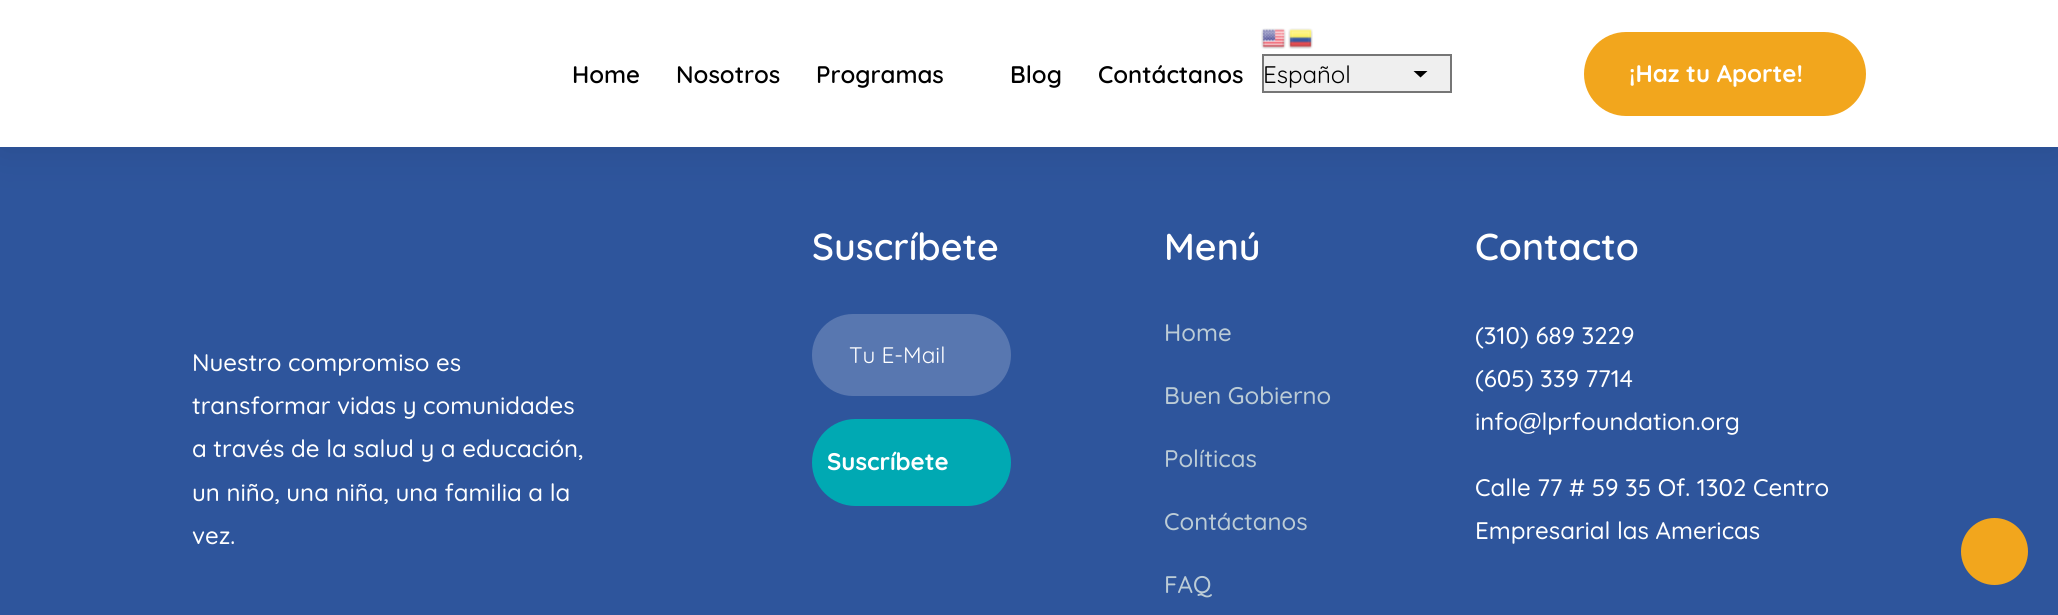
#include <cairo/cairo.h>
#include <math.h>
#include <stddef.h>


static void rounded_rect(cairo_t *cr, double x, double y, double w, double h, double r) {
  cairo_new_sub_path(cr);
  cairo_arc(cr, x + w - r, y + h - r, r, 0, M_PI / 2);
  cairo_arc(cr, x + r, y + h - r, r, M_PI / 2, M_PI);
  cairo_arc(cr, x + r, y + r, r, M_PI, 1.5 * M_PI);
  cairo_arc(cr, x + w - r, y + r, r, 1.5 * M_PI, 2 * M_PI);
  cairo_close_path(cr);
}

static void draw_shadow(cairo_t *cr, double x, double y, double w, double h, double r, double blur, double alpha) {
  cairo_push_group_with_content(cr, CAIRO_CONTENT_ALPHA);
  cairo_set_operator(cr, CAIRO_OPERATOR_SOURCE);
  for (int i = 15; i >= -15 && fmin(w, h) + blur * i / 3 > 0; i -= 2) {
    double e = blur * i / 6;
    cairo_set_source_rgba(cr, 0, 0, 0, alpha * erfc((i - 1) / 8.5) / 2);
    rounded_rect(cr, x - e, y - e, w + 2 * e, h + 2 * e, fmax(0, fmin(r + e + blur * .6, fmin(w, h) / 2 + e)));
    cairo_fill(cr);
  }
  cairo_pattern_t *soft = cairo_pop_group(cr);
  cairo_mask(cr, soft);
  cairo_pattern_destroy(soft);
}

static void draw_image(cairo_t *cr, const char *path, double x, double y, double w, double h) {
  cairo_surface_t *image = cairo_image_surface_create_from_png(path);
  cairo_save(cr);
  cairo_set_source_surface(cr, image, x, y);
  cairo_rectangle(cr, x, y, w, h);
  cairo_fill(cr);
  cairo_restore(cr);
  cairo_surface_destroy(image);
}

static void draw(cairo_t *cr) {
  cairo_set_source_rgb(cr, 46 / 255.0, 85 / 255.0, 156 / 255.0);
  cairo_paint(cr);
  cairo_set_source_rgb(cr, 0, 0, 0);
  draw_shadow(cr, 0, 3, 2058, 147, 0, 21, 0.09);
  cairo_set_source_rgb(cr, 1, 1, 1);
  cairo_rectangle(cr, 0, 0, 2058, 147);
  cairo_fill(cr);
  draw_image(cr, "images/1.png", 1261, 28, 25, 21);
  draw_image(cr, "images/2.png", 1288, 28, 25, 21);
  cairo_set_source_rgb(cr, 239 / 255.0, 239 / 255.0, 239 / 255.0);
  cairo_rectangle(cr, 1264, 56, 186, 35);
  cairo_fill(cr);
  cairo_set_source_rgb(cr, 0, 0, 0);
  cairo_new_path(cr);
  cairo_move_to(cr, 1413.5, 71);
  cairo_line_to(cr, 1420.5, 77.5);
  cairo_line_to(cr, 1427.5, 71);
  cairo_close_path(cr);
  cairo_fill(cr);
  cairo_rectangle(cr, 1263, 55, 188, 37);
  cairo_set_source_rgb(cr, 118 / 255.0, 118 / 255.0, 118 / 255.0);
  cairo_stroke(cr);
  cairo_set_source_rgb(cr, 242 / 255.0, 166 / 255.0, 29 / 255.0);
  rounded_rect(cr, 1584, 32, 282, 84, 42);
  cairo_fill(cr);
  cairo_set_source_rgb(cr, 88 / 255.0, 119 / 255.0, 176 / 255.0);
  rounded_rect(cr, 812, 314, 199, 82, 41);
  cairo_fill(cr);
  cairo_set_source_rgb(cr, 0, 169 / 255.0, 179 / 255.0);
  rounded_rect(cr, 812, 419, 199, 87, 43.5);
  cairo_fill(cr);
  cairo_set_source_rgb(cr, 242 / 255.0, 166 / 255.0, 29 / 255.0);
  cairo_arc(cr, 1994.5, 551.5, 33.5, 0, 2 * M_PI);
  cairo_fill(cr);
  cairo_select_font_face(cr, "Quicksand SemiBold", CAIRO_FONT_SLANT_NORMAL, CAIRO_FONT_WEIGHT_NORMAL);
  cairo_set_font_size(cr, 24);
  cairo_set_source_rgb(cr, 0, 0, 0);
  cairo_move_to(cr, 572, 83);
  cairo_show_text(cr, "Home");
  cairo_move_to(cr, 676, 83);
  cairo_show_text(cr, "Nosotros");
  cairo_move_to(cr, 816, 83);
  cairo_show_text(cr, "Programas");
  cairo_move_to(cr, 1010, 83);
  cairo_show_text(cr, "Blog");
  cairo_move_to(cr, 1098, 83);
  cairo_show_text(cr, "Contáctanos");
  cairo_select_font_face(cr, "Quicksand", CAIRO_FONT_SLANT_NORMAL, CAIRO_FONT_WEIGHT_NORMAL);
  cairo_move_to(cr, 1263, 83);
  cairo_show_text(cr, "Español");
  cairo_select_font_face(cr, "Quicksand", CAIRO_FONT_SLANT_NORMAL, CAIRO_FONT_WEIGHT_BOLD);
  cairo_set_source_rgb(cr, 1, 1, 1);
  cairo_move_to(cr, 1629, 82);
  cairo_show_text(cr, "¡Haz tu Aporte!");
  cairo_select_font_face(cr, "Quicksand Medium", CAIRO_FONT_SLANT_NORMAL, CAIRO_FONT_WEIGHT_NORMAL);
  cairo_move_to(cr, 192, 371);
  cairo_show_text(cr, "Nuestro compromiso es");
  cairo_move_to(cr, 192, 414);
  cairo_show_text(cr, "transformar vidas y comunidades");
  cairo_move_to(cr, 192, 457);
  cairo_show_text(cr, "a través de la salud y a educación,");
  cairo_move_to(cr, 192, 501);
  cairo_show_text(cr, "un niño, una niña, una familia a la");
  cairo_move_to(cr, 192, 544);
  cairo_show_text(cr, "vez.");
  cairo_select_font_face(cr, "Quicksand SemiBold", CAIRO_FONT_SLANT_NORMAL, CAIRO_FONT_WEIGHT_NORMAL);
  cairo_set_font_size(cr, 37.5);
  cairo_move_to(cr, 812, 260);
  cairo_show_text(cr, "Suscríbete");
  cairo_select_font_face(cr, "Quicksand", CAIRO_FONT_SLANT_NORMAL, CAIRO_FONT_WEIGHT_NORMAL);
  cairo_set_font_size(cr, 22.5);
  cairo_move_to(cr, 849, 363);
  cairo_show_text(cr, "Tu E-Mail");
  cairo_select_font_face(cr, "Quicksand", CAIRO_FONT_SLANT_NORMAL, CAIRO_FONT_WEIGHT_BOLD);
  cairo_set_font_size(cr, 24);
  cairo_move_to(cr, 827, 470);
  cairo_show_text(cr, "Suscríbete");
  cairo_select_font_face(cr, "Quicksand SemiBold", CAIRO_FONT_SLANT_NORMAL, CAIRO_FONT_WEIGHT_NORMAL);
  cairo_set_font_size(cr, 37.5);
  cairo_move_to(cr, 1164, 260);
  cairo_show_text(cr, "Menú");
  cairo_select_font_face(cr, "Quicksand Medium", CAIRO_FONT_SLANT_NORMAL, CAIRO_FONT_WEIGHT_NORMAL);
  cairo_set_font_size(cr, 24);
  cairo_set_source_rgb(cr, 188 / 255.0, 204 / 255.0, 214 / 255.0);
  cairo_move_to(cr, 1164, 341);
  cairo_show_text(cr, "Home");
  cairo_move_to(cr, 1164, 404);
  cairo_show_text(cr, "Buen Gobierno");
  cairo_move_to(cr, 1164, 467);
  cairo_show_text(cr, "Políticas");
  cairo_move_to(cr, 1164, 530);
  cairo_show_text(cr, "Contáctanos");
  cairo_move_to(cr, 1164, 593);
  cairo_show_text(cr, "FAQ");
  cairo_select_font_face(cr, "Quicksand SemiBold", CAIRO_FONT_SLANT_NORMAL, CAIRO_FONT_WEIGHT_NORMAL);
  cairo_set_font_size(cr, 37.5);
  cairo_set_source_rgb(cr, 1, 1, 1);
  cairo_move_to(cr, 1475, 260);
  cairo_show_text(cr, "Contacto");
  cairo_select_font_face(cr, "Quicksand Medium", CAIRO_FONT_SLANT_NORMAL, CAIRO_FONT_WEIGHT_NORMAL);
  cairo_set_font_size(cr, 24);
  cairo_move_to(cr, 1475, 344);
  cairo_show_text(cr, "(310) 689 3229");
  cairo_move_to(cr, 1475, 387);
  cairo_show_text(cr, "(605) 339 7714");
  cairo_move_to(cr, 1475, 430);
  cairo_show_text(cr, "info@lprfoundation.org");
  cairo_move_to(cr, 1475, 496);
  cairo_show_text(cr, "Calle 77 # 59 35 Of. 1302 Centro");
  cairo_move_to(cr, 1475, 539);
  cairo_show_text(cr, "Empresarial las Americas");
}

int main(void) {
  cairo_surface_t *surface = cairo_image_surface_create(CAIRO_FORMAT_RGB24, 2058, 615);
  cairo_t *cr = cairo_create(surface);
  cairo_font_options_t *options = cairo_font_options_create();
  cairo_font_options_set_hint_metrics(options, CAIRO_HINT_METRICS_OFF);
  cairo_font_options_set_hint_style(options, CAIRO_HINT_STYLE_NONE);
  cairo_set_font_options(cr, options);
  cairo_set_miter_limit(cr, 4);
  draw(cr);
  cairo_surface_write_to_png(surface, "out.png");
  cairo_font_options_destroy(options);
  cairo_destroy(cr);
  cairo_surface_destroy(surface);
  return 0;
}
